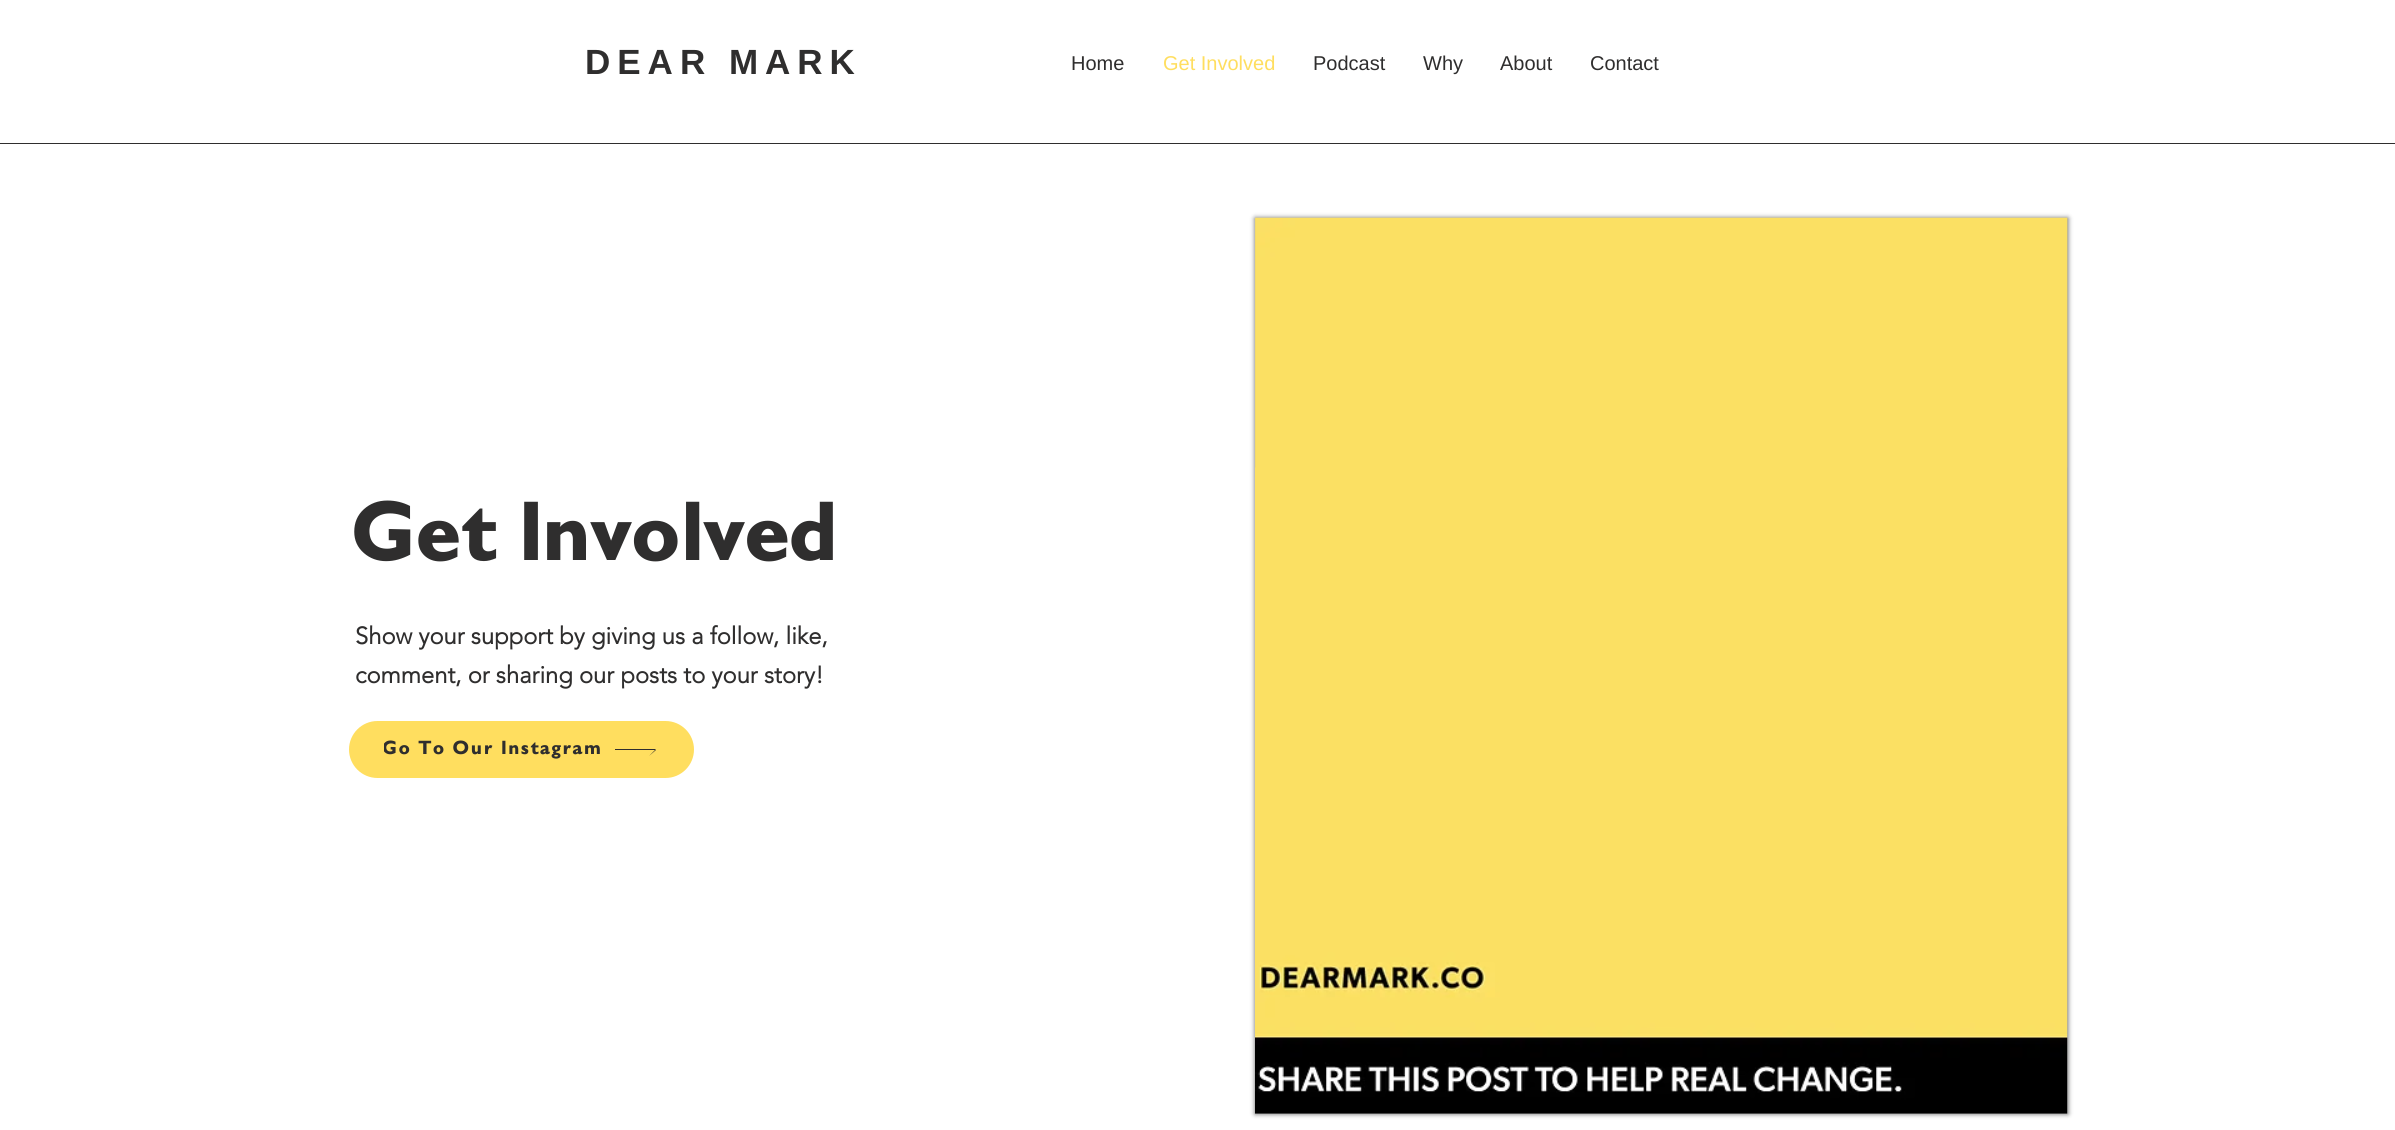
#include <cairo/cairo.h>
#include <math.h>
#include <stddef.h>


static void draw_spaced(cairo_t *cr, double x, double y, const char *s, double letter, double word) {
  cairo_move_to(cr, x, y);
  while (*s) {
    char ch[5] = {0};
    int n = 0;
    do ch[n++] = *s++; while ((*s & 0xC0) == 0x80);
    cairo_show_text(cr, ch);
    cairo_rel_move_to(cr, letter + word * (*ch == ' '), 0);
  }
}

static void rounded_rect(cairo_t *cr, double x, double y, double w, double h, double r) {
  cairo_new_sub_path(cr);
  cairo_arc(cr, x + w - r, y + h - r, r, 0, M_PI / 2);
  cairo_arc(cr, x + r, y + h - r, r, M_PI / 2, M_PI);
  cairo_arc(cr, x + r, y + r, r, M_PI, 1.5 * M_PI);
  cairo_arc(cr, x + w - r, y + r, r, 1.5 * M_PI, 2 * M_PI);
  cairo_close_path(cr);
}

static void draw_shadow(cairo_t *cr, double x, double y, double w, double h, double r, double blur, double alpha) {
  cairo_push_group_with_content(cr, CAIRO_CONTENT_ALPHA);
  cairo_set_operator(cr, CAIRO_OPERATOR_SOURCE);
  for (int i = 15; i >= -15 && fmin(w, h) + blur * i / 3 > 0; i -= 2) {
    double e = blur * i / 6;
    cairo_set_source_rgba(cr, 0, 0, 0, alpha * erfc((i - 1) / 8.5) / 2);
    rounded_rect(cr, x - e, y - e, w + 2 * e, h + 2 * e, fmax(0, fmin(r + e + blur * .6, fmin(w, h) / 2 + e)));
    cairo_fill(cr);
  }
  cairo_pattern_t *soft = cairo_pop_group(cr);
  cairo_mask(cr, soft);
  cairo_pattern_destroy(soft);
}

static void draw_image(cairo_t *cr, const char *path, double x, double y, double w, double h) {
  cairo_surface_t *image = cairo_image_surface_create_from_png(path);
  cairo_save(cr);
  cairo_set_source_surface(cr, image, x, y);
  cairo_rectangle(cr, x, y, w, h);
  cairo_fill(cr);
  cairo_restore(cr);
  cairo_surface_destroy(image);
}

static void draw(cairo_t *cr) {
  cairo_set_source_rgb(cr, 1, 1, 1);
  cairo_paint(cr);
  cairo_set_source_rgb(cr, 47 / 255.0, 46 / 255.0, 46 / 255.0);
  cairo_rectangle(cr, 0, 143, 2395, 1);
  cairo_fill(cr);
  cairo_set_source_rgb(cr, 1, 222 / 255.0, 95 / 255.0);
  rounded_rect(cr, 349, 721, 345, 57, 28.5);
  cairo_fill(cr);
  cairo_set_source_rgb(cr, 47 / 255.0, 46 / 255.0, 46 / 255.0);
  cairo_new_path(cr);
  cairo_move_to(cr, 649, 743);
  cairo_line_to(cr, 655, 749);
  cairo_line_to(cr, 615, 749);
  cairo_line_to(cr, 615, 750);
  cairo_line_to(cr, 655, 750);
  cairo_line_to(cr, 649, 756);
  cairo_line_to(cr, 656, 750);
  cairo_close_path(cr);
  cairo_fill(cr);
  cairo_set_source_rgb(cr, 0, 0, 0);
  draw_shadow(cr, 1255, 218, 813, 896, 0, 2.5, 0.6);
  draw_image(cr, "images/1.png", 1255, 217, 813, 897);
  cairo_select_font_face(cr, "Liberation Sans", CAIRO_FONT_SLANT_NORMAL, CAIRO_FONT_WEIGHT_BOLD);
  cairo_set_font_size(cr, 35);
  cairo_set_source_rgb(cr, 47 / 255.0, 46 / 255.0, 46 / 255.0);
  draw_spaced(cr, 585, 74, "DEAR MARK", 7, 0);
  cairo_select_font_face(cr, "Liberation Sans", CAIRO_FONT_SLANT_NORMAL, CAIRO_FONT_WEIGHT_NORMAL);
  cairo_set_font_size(cr, 20);
  cairo_move_to(cr, 1071, 70);
  cairo_show_text(cr, "Home");
  cairo_set_source_rgb(cr, 1, 222 / 255.0, 95 / 255.0);
  cairo_move_to(cr, 1163, 70);
  cairo_show_text(cr, "Get Involved");
  cairo_set_source_rgb(cr, 47 / 255.0, 46 / 255.0, 46 / 255.0);
  cairo_move_to(cr, 1313, 70);
  cairo_show_text(cr, "Podcast");
  cairo_move_to(cr, 1423, 70);
  cairo_show_text(cr, "Why");
  cairo_move_to(cr, 1500, 70);
  cairo_show_text(cr, "About");
  cairo_move_to(cr, 1590, 70);
  cairo_show_text(cr, "Contact");
  cairo_select_font_face(cr, "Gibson", CAIRO_FONT_SLANT_NORMAL, CAIRO_FONT_WEIGHT_BOLD);
  cairo_set_font_size(cr, 82.5);
  cairo_move_to(cr, 355, 560);
  cairo_show_text(cr, "Get Involved");
  cairo_select_font_face(cr, "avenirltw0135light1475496", CAIRO_FONT_SLANT_NORMAL, CAIRO_FONT_WEIGHT_BOLD);
  cairo_set_font_size(cr, 23.75);
  cairo_move_to(cr, 355, 644);
  cairo_show_text(cr, "Show your support by giving us a follow, like,");
  cairo_move_to(cr, 355, 683);
  cairo_show_text(cr, "comment, or sharing our posts to your story!");
  cairo_save(cr);
  cairo_rectangle(cr, 384, 736, 219, 25);
  cairo_clip(cr);
  cairo_select_font_face(cr, "Gibson", CAIRO_FONT_SLANT_NORMAL, CAIRO_FONT_WEIGHT_BOLD);
  cairo_set_font_size(cr, 18.75);
  draw_spaced(cr, 383, 754, "Go To Our Instagram", 1.9, 0);
  cairo_restore(cr);
}

int main(void) {
  cairo_surface_t *surface = cairo_image_surface_create(CAIRO_FORMAT_RGB24, 2395, 1130);
  cairo_t *cr = cairo_create(surface);
  cairo_font_options_t *options = cairo_font_options_create();
  cairo_font_options_set_hint_metrics(options, CAIRO_HINT_METRICS_OFF);
  cairo_font_options_set_hint_style(options, CAIRO_HINT_STYLE_NONE);
  cairo_set_font_options(cr, options);
  cairo_set_miter_limit(cr, 4);
  draw(cr);
  cairo_surface_write_to_png(surface, "out.png");
  cairo_font_options_destroy(options);
  cairo_destroy(cr);
  cairo_surface_destroy(surface);
  return 0;
}
